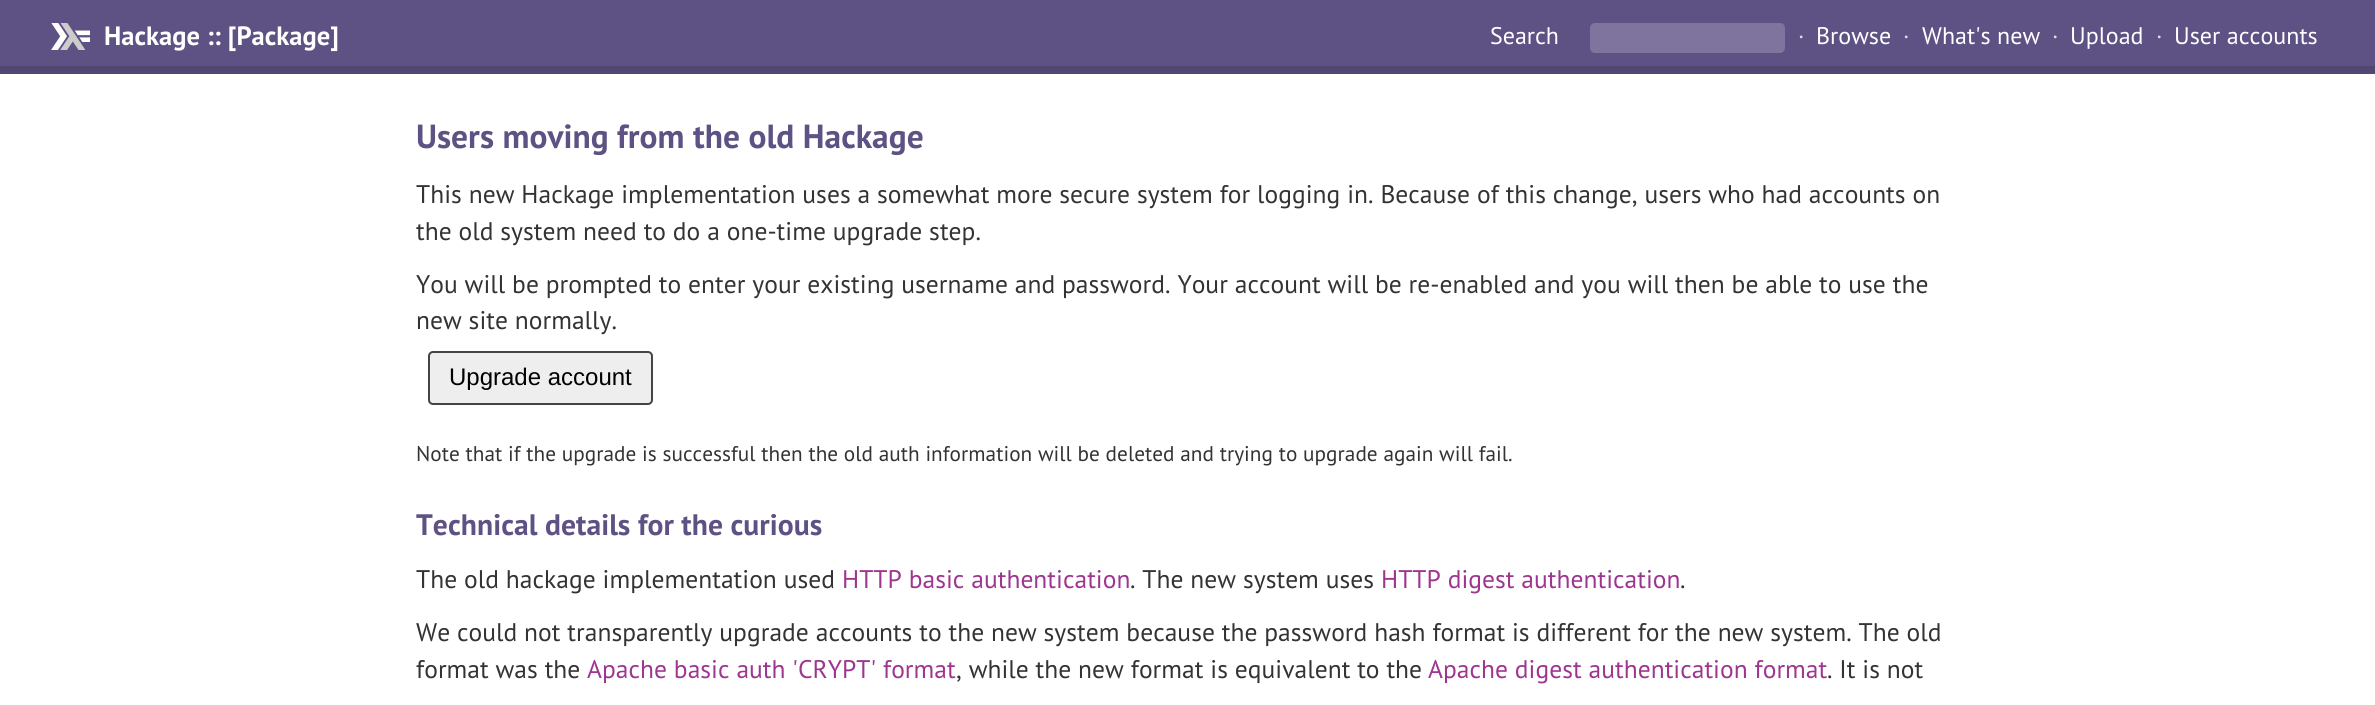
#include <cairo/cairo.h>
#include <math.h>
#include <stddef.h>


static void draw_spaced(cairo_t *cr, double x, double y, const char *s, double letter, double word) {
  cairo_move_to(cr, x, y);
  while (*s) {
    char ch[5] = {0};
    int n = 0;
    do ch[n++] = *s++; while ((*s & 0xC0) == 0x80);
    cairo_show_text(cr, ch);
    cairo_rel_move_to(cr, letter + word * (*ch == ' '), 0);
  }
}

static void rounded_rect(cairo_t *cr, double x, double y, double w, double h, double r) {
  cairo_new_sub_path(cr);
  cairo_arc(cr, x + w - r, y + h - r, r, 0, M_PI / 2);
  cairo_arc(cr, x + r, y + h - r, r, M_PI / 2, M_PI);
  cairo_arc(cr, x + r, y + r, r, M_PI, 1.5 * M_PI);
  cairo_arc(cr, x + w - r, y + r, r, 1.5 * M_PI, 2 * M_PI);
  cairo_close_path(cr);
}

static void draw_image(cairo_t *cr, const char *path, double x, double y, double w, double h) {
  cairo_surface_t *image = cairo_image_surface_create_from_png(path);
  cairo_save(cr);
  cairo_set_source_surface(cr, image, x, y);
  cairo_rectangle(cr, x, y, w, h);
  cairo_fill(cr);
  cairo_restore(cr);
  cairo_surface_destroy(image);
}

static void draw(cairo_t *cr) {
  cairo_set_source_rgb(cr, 1, 1, 1);
  cairo_paint(cr);
  cairo_set_source_rgb(cr, 94 / 255.0, 81 / 255.0, 132 / 255.0);
  cairo_rectangle(cr, 0, 0, 2375, 66);
  cairo_fill(cr);
  cairo_set_source_rgb(cr, 82 / 255.0, 70 / 255.0, 115 / 255.0);
  cairo_rectangle(cr, 0, 66, 2375, 8);
  cairo_fill(cr);
  draw_image(cr, "images/1.png", 51, 23, 39, 27);
  cairo_set_source_rgb(cr, 126 / 255.0, 116 / 255.0, 157 / 255.0);
  rounded_rect(cr, 1590, 23, 195, 30, 5);
  cairo_fill(cr);
  cairo_set_source_rgb(cr, 238 / 255.0, 238 / 255.0, 238 / 255.0);
  rounded_rect(cr, 429, 352, 223, 52, 4);
  cairo_fill_preserve(cr);
  cairo_set_source_rgb(cr, 68 / 255.0, 68 / 255.0, 68 / 255.0);
  cairo_stroke(cr);
  cairo_select_font_face(cr, "PT Sans", CAIRO_FONT_SLANT_NORMAL, CAIRO_FONT_WEIGHT_BOLD);
  cairo_set_font_size(cr, 26.5);
  cairo_set_source_rgb(cr, 1, 1, 1);
  draw_spaced(cr, 104, 45, "Hackage :: [Package]", 0.04, 0);
  cairo_select_font_face(cr, "PT Sans", CAIRO_FONT_SLANT_NORMAL, CAIRO_FONT_WEIGHT_NORMAL);
  cairo_set_font_size(cr, 24);
  cairo_move_to(cr, 1490, 44);
  cairo_show_text(cr, "Search");
  cairo_set_source_rgb(cr, 221 / 255.0, 221 / 255.0, 221 / 255.0);
  draw_spaced(cr, 1798, 44, "·", 0.04, 0);
  cairo_set_source_rgb(cr, 1, 1, 1);
  draw_spaced(cr, 1816, 44, "Browse", 0.04, 0);
  cairo_set_source_rgb(cr, 221 / 255.0, 221 / 255.0, 221 / 255.0);
  draw_spaced(cr, 1903, 44, "·", 0.04, 0);
  cairo_set_source_rgb(cr, 1, 1, 1);
  draw_spaced(cr, 1922, 44, "What's new", 0.04, 0);
  cairo_set_source_rgb(cr, 221 / 255.0, 221 / 255.0, 221 / 255.0);
  draw_spaced(cr, 2052, 44, "·", 0.04, 0);
  cairo_set_source_rgb(cr, 1, 1, 1);
  draw_spaced(cr, 2070, 44, "Upload", 0.04, 0);
  cairo_set_source_rgb(cr, 221 / 255.0, 221 / 255.0, 221 / 255.0);
  draw_spaced(cr, 2156, 44, "·", 0.04, 0);
  cairo_set_source_rgb(cr, 1, 1, 1);
  draw_spaced(cr, 2174, 44, "User accounts", 0.04, 0);
  cairo_select_font_face(cr, "PT Sans", CAIRO_FONT_SLANT_NORMAL, CAIRO_FONT_WEIGHT_BOLD);
  cairo_set_font_size(cr, 33.4);
  cairo_set_source_rgb(cr, 94 / 255.0, 81 / 255.0, 132 / 255.0);
  draw_spaced(cr, 416, 148, "Users moving from the old Hackage", 0.04, 0);
  cairo_select_font_face(cr, "PT Sans", CAIRO_FONT_SLANT_NORMAL, CAIRO_FONT_WEIGHT_NORMAL);
  cairo_set_font_size(cr, 25.5);
  cairo_set_source_rgb(cr, 51 / 255.0, 51 / 255.0, 51 / 255.0);
  draw_spaced(cr, 416, 203, "This new Hackage implementation uses a somewhat more secure system for logging in. Because of this change, users who had accounts on", 0.04, 0);
  draw_spaced(cr, 416, 240, "the old system need to do a one-time upgrade step.", 0.04, 0);
  draw_spaced(cr, 416, 293, "You will be prompted to enter your existing username and password. Your account will be re-enabled and you will then be able to use the", 0.04, 0);
  draw_spaced(cr, 416, 329, "new site normally.", 0.04, 0);
  cairo_select_font_face(cr, "Liberation Sans", CAIRO_FONT_SLANT_NORMAL, CAIRO_FONT_WEIGHT_NORMAL);
  cairo_set_font_size(cr, 24);
  cairo_set_source_rgb(cr, 0, 0, 0);
  cairo_move_to(cr, 449, 385);
  cairo_show_text(cr, "Upgrade account");
  cairo_select_font_face(cr, "PT Sans", CAIRO_FONT_SLANT_NORMAL, CAIRO_FONT_WEIGHT_NORMAL);
  cairo_set_font_size(cr, 21.25);
  cairo_set_source_rgb(cr, 51 / 255.0, 51 / 255.0, 51 / 255.0);
  draw_spaced(cr, 416, 461, "Note that if the upgrade is successful then the old auth information will be deleted and trying to upgrade again will fail.", 0.04, 0);
  cairo_select_font_face(cr, "PT Sans", CAIRO_FONT_SLANT_NORMAL, CAIRO_FONT_WEIGHT_BOLD);
  cairo_set_font_size(cr, 29.6);
  cairo_set_source_rgb(cr, 94 / 255.0, 81 / 255.0, 132 / 255.0);
  draw_spaced(cr, 416, 535, "Technical details for the curious", 0.04, 0);
  cairo_select_font_face(cr, "PT Sans", CAIRO_FONT_SLANT_NORMAL, CAIRO_FONT_WEIGHT_NORMAL);
  cairo_set_font_size(cr, 25.5);
  cairo_set_source_rgb(cr, 51 / 255.0, 51 / 255.0, 51 / 255.0);
  draw_spaced(cr, 416, 588, "The old hackage implementation used", 0.04, 0);
  cairo_set_source_rgb(cr, 158 / 255.0, 53 / 255.0, 143 / 255.0);
  draw_spaced(cr, 842, 588, "HTTP basic authentication", 0.04, 0);
  cairo_set_source_rgb(cr, 51 / 255.0, 51 / 255.0, 51 / 255.0);
  draw_spaced(cr, 1130, 588, ". The new system uses", 0.04, 0);
  cairo_set_source_rgb(cr, 158 / 255.0, 53 / 255.0, 143 / 255.0);
  draw_spaced(cr, 1381, 588, "HTTP digest authentication", 0.04, 0);
  cairo_set_source_rgb(cr, 51 / 255.0, 51 / 255.0, 51 / 255.0);
  draw_spaced(cr, 1680, 588, ".", 0.04, 0);
  draw_spaced(cr, 416, 641, "We could not transparently upgrade accounts to the new system because the password hash format is different for the new system. The old", 0.04, 0);
  draw_spaced(cr, 416, 678, "format was the", 0.04, 0);
  cairo_set_source_rgb(cr, 158 / 255.0, 53 / 255.0, 143 / 255.0);
  draw_spaced(cr, 587, 678, "Apache basic auth 'CRYPT' format", 0.04, 0);
  cairo_set_source_rgb(cr, 51 / 255.0, 51 / 255.0, 51 / 255.0);
  draw_spaced(cr, 956, 678, ", while the new format is equivalent to the", 0.04, 0);
  cairo_set_source_rgb(cr, 158 / 255.0, 53 / 255.0, 143 / 255.0);
  draw_spaced(cr, 1428, 678, "Apache digest authentication format", 0.04, 0);
  cairo_set_source_rgb(cr, 51 / 255.0, 51 / 255.0, 51 / 255.0);
  draw_spaced(cr, 1827, 678, ". It is not", 0.04, 0);
}

int main(void) {
  cairo_surface_t *surface = cairo_image_surface_create(CAIRO_FORMAT_RGB24, 2375, 705);
  cairo_t *cr = cairo_create(surface);
  cairo_font_options_t *options = cairo_font_options_create();
  cairo_font_options_set_hint_metrics(options, CAIRO_HINT_METRICS_OFF);
  cairo_font_options_set_hint_style(options, CAIRO_HINT_STYLE_NONE);
  cairo_set_font_options(cr, options);
  cairo_set_miter_limit(cr, 4);
  draw(cr);
  cairo_surface_write_to_png(surface, "out.png");
  cairo_font_options_destroy(options);
  cairo_destroy(cr);
  cairo_surface_destroy(surface);
  return 0;
}
